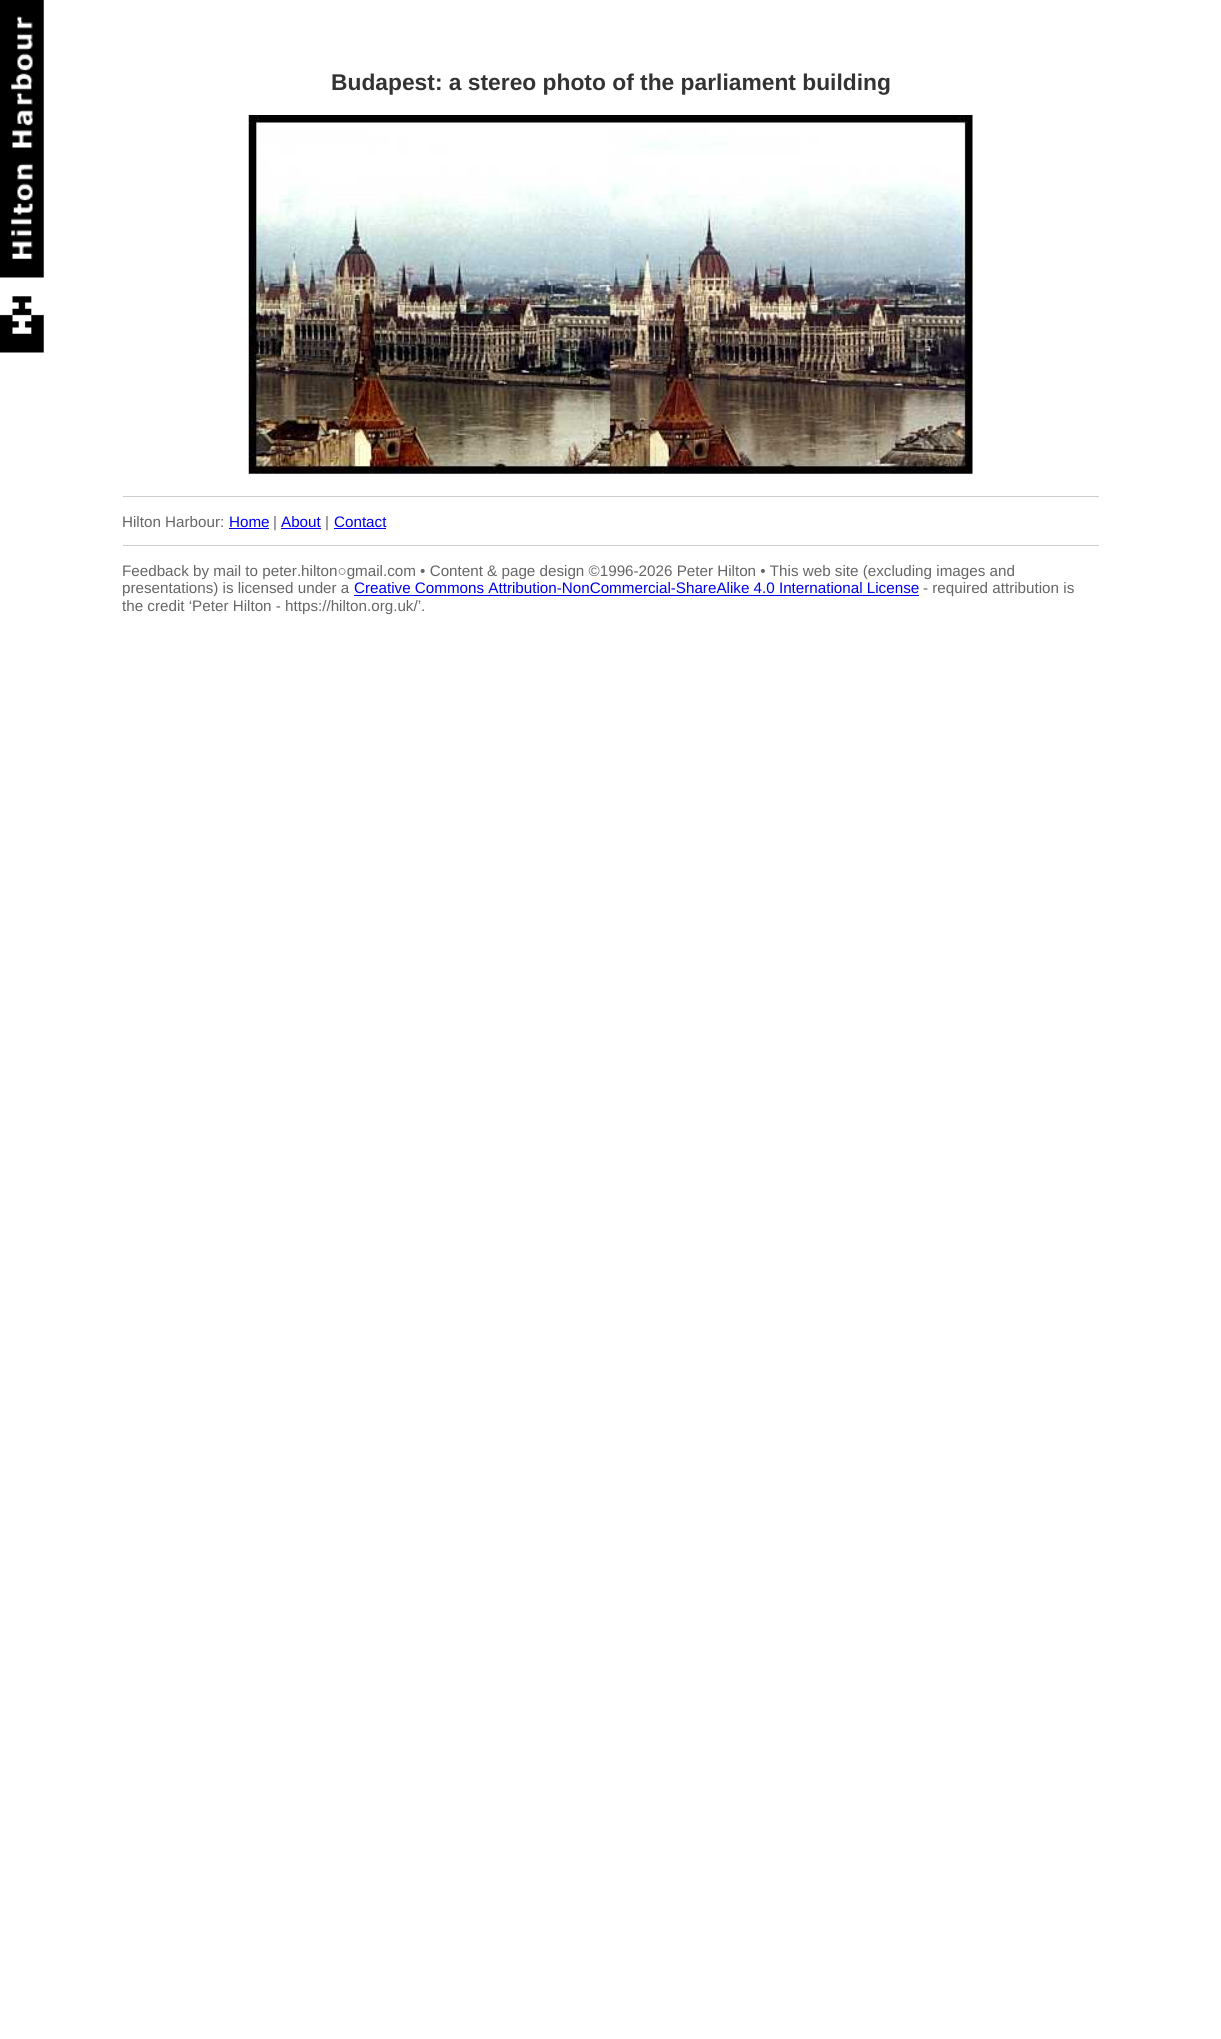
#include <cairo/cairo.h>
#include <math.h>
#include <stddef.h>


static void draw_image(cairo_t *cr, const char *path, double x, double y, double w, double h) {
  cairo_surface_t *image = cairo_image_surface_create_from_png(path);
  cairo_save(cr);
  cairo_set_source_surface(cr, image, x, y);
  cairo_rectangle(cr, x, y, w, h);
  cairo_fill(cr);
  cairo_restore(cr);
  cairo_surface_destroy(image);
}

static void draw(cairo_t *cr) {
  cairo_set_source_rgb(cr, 1, 1, 1);
  cairo_paint(cr);
  draw_image(cr, "images/1.png", 0, 0, 44, 353);
  draw_image(cr, "images/2.png", 248, 115, 725, 359);
  cairo_set_source_rgb(cr, 204 / 255.0, 204 / 255.0, 204 / 255.0);
  cairo_rectangle(cr, 123, 496, 976, 1);
  cairo_fill(cr);
  cairo_set_source_rgb(cr, 0, 0, 238 / 255.0);
  cairo_rectangle(cr, 229, 528, 40, 1);
  cairo_fill(cr);
  cairo_rectangle(cr, 281, 528, 40, 1);
  cairo_fill(cr);
  cairo_rectangle(cr, 334, 528, 52, 1);
  cairo_fill(cr);
  cairo_set_source_rgb(cr, 204 / 255.0, 204 / 255.0, 204 / 255.0);
  cairo_rectangle(cr, 123, 545, 976, 1);
  cairo_fill(cr);
  cairo_set_source_rgb(cr, 0, 0, 238 / 255.0);
  cairo_rectangle(cr, 354, 595, 565, 1);
  cairo_fill(cr);
  cairo_select_font_face(cr, "Liberation Sans", CAIRO_FONT_SLANT_NORMAL, CAIRO_FONT_WEIGHT_BOLD);
  cairo_set_font_size(cr, 22.8);
  cairo_set_source_rgb(cr, 51 / 255.0, 51 / 255.0, 51 / 255.0);
  cairo_move_to(cr, 331, 90);
  cairo_show_text(cr, "Budapest: a stereo photo of the parliament building");
  cairo_select_font_face(cr, "Liberation Sans", CAIRO_FONT_SLANT_NORMAL, CAIRO_FONT_WEIGHT_NORMAL);
  cairo_set_font_size(cr, 15.2);
  cairo_set_source_rgb(cr, 102 / 255.0, 102 / 255.0, 102 / 255.0);
  cairo_move_to(cr, 122, 527);
  cairo_show_text(cr, "Hilton Harbour:");
  cairo_set_source_rgb(cr, 0, 0, 238 / 255.0);
  cairo_move_to(cr, 229, 527);
  cairo_show_text(cr, "Home");
  cairo_set_source_rgb(cr, 102 / 255.0, 102 / 255.0, 102 / 255.0);
  cairo_move_to(cr, 273, 527);
  cairo_show_text(cr, "|");
  cairo_set_source_rgb(cr, 0, 0, 238 / 255.0);
  cairo_move_to(cr, 281, 527);
  cairo_show_text(cr, "About");
  cairo_set_source_rgb(cr, 102 / 255.0, 102 / 255.0, 102 / 255.0);
  cairo_move_to(cr, 325, 527);
  cairo_show_text(cr, "|");
  cairo_set_source_rgb(cr, 0, 0, 238 / 255.0);
  cairo_move_to(cr, 334, 527);
  cairo_show_text(cr, "Contact");
  cairo_set_source_rgb(cr, 102 / 255.0, 102 / 255.0, 102 / 255.0);
  cairo_move_to(cr, 122, 576);
  cairo_show_text(cr, "Feedback by mail to peter.hilton○gmail.com • Content & page design ©1996-2026 Peter Hilton • This web site (excluding images and");
  cairo_move_to(cr, 122, 593);
  cairo_show_text(cr, "presentations) is licensed under a");
  cairo_set_source_rgb(cr, 0, 0, 238 / 255.0);
  cairo_move_to(cr, 354, 593);
  cairo_show_text(cr, "Creative Commons Attribution-NonCommercial-ShareAlike 4.0 International License");
  cairo_set_source_rgb(cr, 102 / 255.0, 102 / 255.0, 102 / 255.0);
  cairo_move_to(cr, 923, 593);
  cairo_show_text(cr, "- required attribution is");
  cairo_move_to(cr, 122, 611);
  cairo_show_text(cr, "the credit ‘Peter Hilton - https://hilton.org.uk/’.");
}

int main(void) {
  cairo_surface_t *surface = cairo_image_surface_create(CAIRO_FORMAT_RGB24, 1221, 2039);
  cairo_t *cr = cairo_create(surface);
  cairo_font_options_t *options = cairo_font_options_create();
  cairo_font_options_set_hint_metrics(options, CAIRO_HINT_METRICS_OFF);
  cairo_font_options_set_hint_style(options, CAIRO_HINT_STYLE_NONE);
  cairo_set_font_options(cr, options);
  cairo_set_miter_limit(cr, 4);
  draw(cr);
  cairo_surface_write_to_png(surface, "out.png");
  cairo_font_options_destroy(options);
  cairo_destroy(cr);
  cairo_surface_destroy(surface);
  return 0;
}
